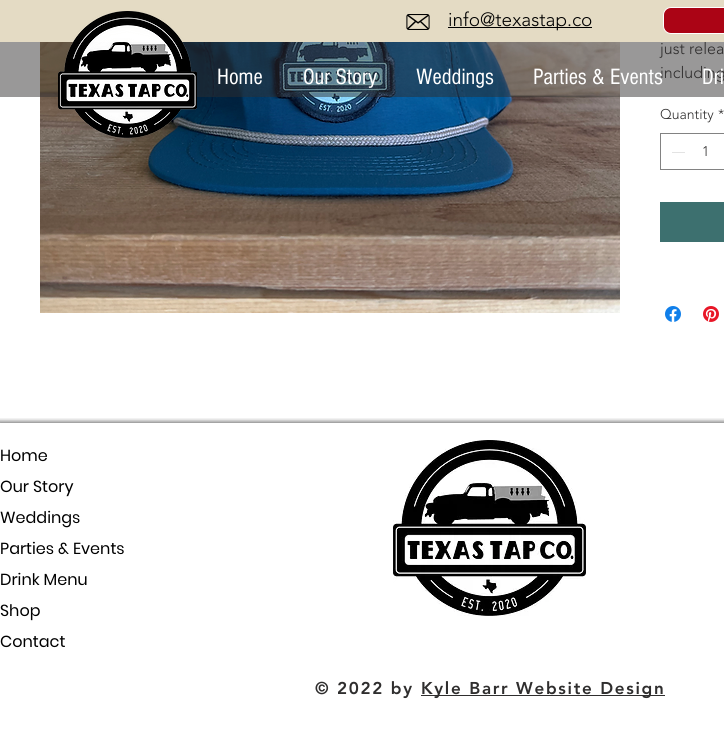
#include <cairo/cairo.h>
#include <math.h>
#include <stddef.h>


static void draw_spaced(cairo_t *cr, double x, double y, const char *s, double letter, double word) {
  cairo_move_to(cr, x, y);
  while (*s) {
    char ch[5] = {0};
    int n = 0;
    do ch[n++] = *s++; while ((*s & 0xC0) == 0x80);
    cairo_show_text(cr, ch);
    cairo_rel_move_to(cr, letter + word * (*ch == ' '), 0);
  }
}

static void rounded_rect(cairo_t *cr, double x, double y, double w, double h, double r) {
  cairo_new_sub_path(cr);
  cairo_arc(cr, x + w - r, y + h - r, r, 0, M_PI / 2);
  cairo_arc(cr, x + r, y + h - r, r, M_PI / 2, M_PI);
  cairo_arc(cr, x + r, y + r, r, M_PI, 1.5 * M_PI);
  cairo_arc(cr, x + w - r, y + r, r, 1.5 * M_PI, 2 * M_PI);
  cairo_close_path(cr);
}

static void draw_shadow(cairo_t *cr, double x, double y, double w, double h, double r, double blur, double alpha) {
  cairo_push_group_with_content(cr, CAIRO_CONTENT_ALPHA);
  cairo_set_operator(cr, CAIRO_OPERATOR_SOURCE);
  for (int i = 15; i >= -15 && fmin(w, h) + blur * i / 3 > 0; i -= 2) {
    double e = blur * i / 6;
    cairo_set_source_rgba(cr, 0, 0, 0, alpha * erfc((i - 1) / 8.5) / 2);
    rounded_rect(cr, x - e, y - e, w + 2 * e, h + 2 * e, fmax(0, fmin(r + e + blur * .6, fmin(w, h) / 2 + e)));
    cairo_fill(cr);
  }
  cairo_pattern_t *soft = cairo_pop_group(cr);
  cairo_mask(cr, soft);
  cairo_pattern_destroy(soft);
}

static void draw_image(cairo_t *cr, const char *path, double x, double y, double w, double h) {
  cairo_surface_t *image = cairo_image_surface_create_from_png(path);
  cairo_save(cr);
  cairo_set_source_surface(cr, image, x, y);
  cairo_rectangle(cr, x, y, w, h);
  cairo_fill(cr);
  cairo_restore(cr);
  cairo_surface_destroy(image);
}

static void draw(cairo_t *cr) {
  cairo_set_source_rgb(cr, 1, 1, 1);
  cairo_paint(cr);
  draw_image(cr, "images/3.png", 40, 42, 580, 271);
  cairo_rectangle(cr, 660.5, 133.5, 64, 36);
  cairo_set_source_rgb(cr, 130 / 255.0, 130 / 255.0, 130 / 255.0);
  cairo_set_line_width(cr, 1);
  cairo_stroke(cr);
  cairo_set_source_rgb(cr, 227 / 255.0, 227 / 255.0, 227 / 255.0);
  cairo_rectangle(cr, 672, 152, 13, 1);
  cairo_fill(cr);
  cairo_set_source_rgb(cr, 61 / 255.0, 112 / 255.0, 111 / 255.0);
  cairo_rectangle(cr, 660, 202, 64, 40);
  cairo_fill(cr);
  draw_image(cr, "images/4.png", 665, 306, 16, 16);
  draw_image(cr, "images/5.png", 703, 306, 16, 16);
  cairo_save(cr);
  cairo_rectangle(cr, 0, 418, 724, 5);
  cairo_clip(cr);
  cairo_set_source_rgb(cr, 0, 0, 0);
  draw_shadow(cr, -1, 421, 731, 317, 0, 2, 0.46);
  cairo_restore(cr);
  draw_image(cr, "images/6.png", 393, 440, 193, 176);
  cairo_set_source_rgb(cr, 47 / 255.0, 46 / 255.0, 46 / 255.0);
  cairo_rectangle(cr, 421, 695, 244, 1);
  cairo_fill(cr);
  cairo_select_font_face(cr, "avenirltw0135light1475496 Light", CAIRO_FONT_SLANT_NORMAL, CAIRO_FONT_WEIGHT_NORMAL);
  cairo_set_font_size(cr, 16);
  cairo_move_to(cr, 660, 54);
  cairo_show_text(cr, "just relea");
  cairo_set_source_rgb(cr, 228 / 255.0, 219 / 255.0, 196 / 255.0);
  cairo_rectangle(cr, 0, 0, 724, 42);
  cairo_fill(cr);
  cairo_set_source_rgb(cr, 171 / 255.0, 4 / 255.0, 21 / 255.0);
  rounded_rect(cr, 663.5, 7.5, 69, 26, 7.5);
  cairo_fill_preserve(cr);
  cairo_set_source_rgb(cr, 1, 1, 1);
  cairo_stroke(cr);
  cairo_set_source_rgb(cr, 0, 0, 0);
  cairo_rectangle(cr, 448, 27, 144, 1);
  cairo_fill(cr);
  cairo_set_font_size(cr, 19);
  cairo_move_to(cr, 448, 26);
  cairo_show_text(cr, "info@texastap.co");
  draw_image(cr, "images/2.png", 406, 14, 24, 16);
  cairo_set_font_size(cr, 16);
  cairo_set_source_rgb(cr, 47 / 255.0, 46 / 255.0, 46 / 255.0);
  cairo_move_to(cr, 660, 78);
  cairo_show_text(cr, "including");
  cairo_set_source_rgba(cr, 47 / 255.0, 46 / 255.0, 46 / 255.0, 0.49);
  cairo_rectangle(cr, 0, 42, 724, 55);
  cairo_fill(cr);
  draw_image(cr, "images/1.png", 58, 11, 139, 127);
  cairo_select_font_face(cr, "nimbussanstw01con", CAIRO_FONT_SLANT_NORMAL, CAIRO_FONT_WEIGHT_NORMAL);
  cairo_set_font_size(cr, 23);
  cairo_set_source_rgb(cr, 1, 1, 1);
  cairo_move_to(cr, 702, 84);
  cairo_show_text(cr, "Dri");
  cairo_move_to(cr, 533, 84);
  cairo_show_text(cr, "Parties & Events");
  cairo_move_to(cr, 416, 84);
  cairo_show_text(cr, "Weddings");
  cairo_move_to(cr, 303, 84);
  cairo_show_text(cr, "Our Story");
  cairo_move_to(cr, 217, 84);
  cairo_show_text(cr, "Home");
  cairo_select_font_face(cr, "avenirltw0135light1475496 Light", CAIRO_FONT_SLANT_NORMAL, CAIRO_FONT_WEIGHT_NORMAL);
  cairo_set_font_size(cr, 14);
  cairo_set_source_rgb(cr, 47 / 255.0, 46 / 255.0, 46 / 255.0);
  cairo_move_to(cr, 660, 119);
  cairo_show_text(cr, "Quantity");
  cairo_move_to(cr, 718, 119);
  cairo_show_text(cr, "*");
  cairo_move_to(cr, 702, 156);
  cairo_show_text(cr, "1");
  cairo_select_font_face(cr, "Poppins", CAIRO_FONT_SLANT_NORMAL, CAIRO_FONT_WEIGHT_NORMAL);
  cairo_set_font_size(cr, 16);
  cairo_set_source_rgb(cr, 0, 0, 0);
  cairo_move_to(cr, 0, 461);
  cairo_show_text(cr, "Home");
  cairo_move_to(cr, 0, 492);
  cairo_show_text(cr, "Our Story");
  cairo_move_to(cr, 0, 523);
  cairo_show_text(cr, "Weddings");
  cairo_move_to(cr, 0, 554);
  cairo_show_text(cr, "Parties & Events");
  cairo_move_to(cr, 0, 585);
  cairo_show_text(cr, "Drink Menu");
  cairo_move_to(cr, 0, 616);
  cairo_show_text(cr, "Shop");
  cairo_move_to(cr, 0, 647);
  cairo_show_text(cr, "Contact");
  cairo_select_font_face(cr, "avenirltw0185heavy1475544 Black", CAIRO_FONT_SLANT_NORMAL, CAIRO_FONT_WEIGHT_NORMAL);
  cairo_set_font_size(cr, 17);
  cairo_set_source_rgb(cr, 47 / 255.0, 46 / 255.0, 46 / 255.0);
  draw_spaced(cr, 315, 694, "© 2022 by", 1.7, 0);
  draw_spaced(cr, 421, 694, "Kyle Barr Website Design", 1.7, 0);
}

int main(void) {
  cairo_surface_t *surface = cairo_image_surface_create(CAIRO_FORMAT_RGB24, 724, 738);
  cairo_t *cr = cairo_create(surface);
  cairo_font_options_t *options = cairo_font_options_create();
  cairo_font_options_set_hint_metrics(options, CAIRO_HINT_METRICS_OFF);
  cairo_font_options_set_hint_style(options, CAIRO_HINT_STYLE_NONE);
  cairo_set_font_options(cr, options);
  cairo_set_miter_limit(cr, 4);
  draw(cr);
  cairo_surface_write_to_png(surface, "out.png");
  cairo_font_options_destroy(options);
  cairo_destroy(cr);
  cairo_surface_destroy(surface);
  return 0;
}
